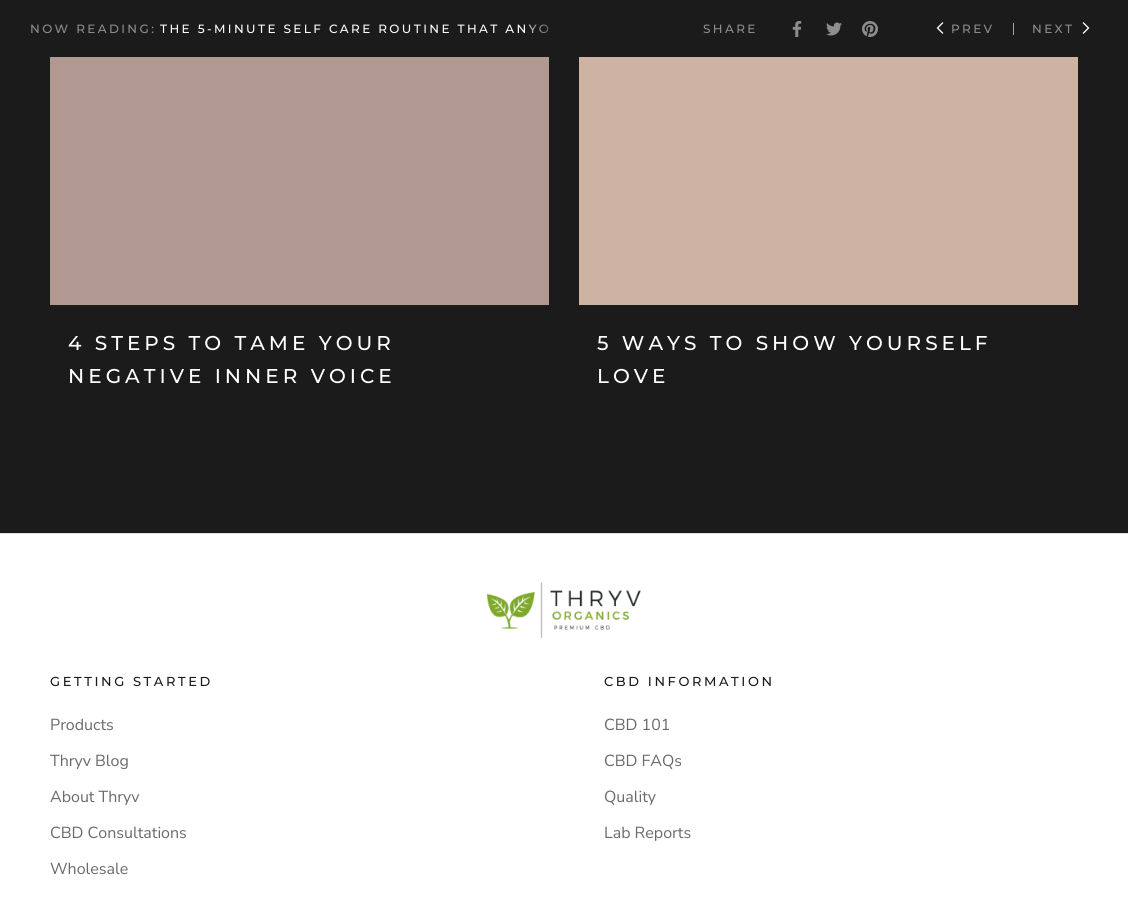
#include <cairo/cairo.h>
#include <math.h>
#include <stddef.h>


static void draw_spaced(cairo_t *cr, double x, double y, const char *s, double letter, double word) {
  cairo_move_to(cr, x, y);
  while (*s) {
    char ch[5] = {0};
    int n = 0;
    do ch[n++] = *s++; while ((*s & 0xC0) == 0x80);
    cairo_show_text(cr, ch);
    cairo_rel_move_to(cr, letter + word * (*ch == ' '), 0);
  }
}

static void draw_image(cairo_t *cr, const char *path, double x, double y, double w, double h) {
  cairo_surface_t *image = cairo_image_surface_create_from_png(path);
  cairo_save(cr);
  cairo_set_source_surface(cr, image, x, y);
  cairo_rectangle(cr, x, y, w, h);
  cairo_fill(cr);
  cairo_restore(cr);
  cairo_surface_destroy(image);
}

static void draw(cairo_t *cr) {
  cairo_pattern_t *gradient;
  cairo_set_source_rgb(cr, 1, 1, 1);
  cairo_paint(cr);
  cairo_set_source_rgb(cr, 28 / 255.0, 27 / 255.0, 27 / 255.0);
  cairo_rectangle(cr, 0, 0, 1128, 533);
  cairo_fill(cr);
  draw_image(cr, "images/1.png", 792, 21, 10, 16);
  draw_image(cr, "images/2.png", 826, 22, 16, 14);
  draw_image(cr, "images/3.png", 862, 21, 16, 16);
  cairo_new_path(cr);
  cairo_move_to(cr, 942.5, 23);
  cairo_line_to(cr, 937.5, 28);
  cairo_line_to(cr, 942.5, 33);
  cairo_set_source_rgb(cr, 1, 1, 1);
  cairo_set_line_width(cr, 1.3);
  cairo_set_line_cap(cr, CAIRO_LINE_CAP_SQUARE);
  cairo_stroke(cr);
  cairo_set_source_rgb(cr, 164 / 255.0, 164 / 255.0, 164 / 255.0);
  cairo_rectangle(cr, 1013, 23, 1, 12);
  cairo_fill(cr);
  cairo_new_path(cr);
  cairo_move_to(cr, 1083.5, 23);
  cairo_line_to(cr, 1088.5, 28);
  cairo_line_to(cr, 1083.5, 33);
  cairo_set_source_rgb(cr, 1, 1, 1);
  cairo_stroke(cr);
  cairo_set_source_rgb(cr, 177 / 255.0, 153 / 255.0, 145 / 255.0);
  cairo_rectangle(cr, 50, 57, 499, 248);
  cairo_fill(cr);
  cairo_set_source_rgb(cr, 206 / 255.0, 179 / 255.0, 163 / 255.0);
  cairo_rectangle(cr, 579, 57, 499, 248);
  cairo_fill(cr);
  cairo_set_source_rgb(cr, 221 / 255.0, 221 / 255.0, 221 / 255.0);
  cairo_rectangle(cr, 0, 533, 1128, 1);
  cairo_fill(cr);
  draw_image(cr, "images/4.png", 486, 582, 155, 56);
  cairo_select_font_face(cr, "Montserrat Medium", CAIRO_FONT_SLANT_NORMAL, CAIRO_FONT_WEIGHT_NORMAL);
  cairo_set_font_size(cr, 12);
  cairo_set_source_rgb(cr, 142 / 255.0, 141 / 255.0, 141 / 255.0);
  draw_spaced(cr, 30, 33, "NOW READING:", 2.4, 0);
  cairo_set_source_rgb(cr, 1, 1, 1);
  draw_spaced(cr, 160, 33, "THE 5-MINUTE SELF CARE ROUTINE THAT ANYO", 2.4, 0);
  gradient = cairo_pattern_create_linear(525, 29, 560, 29);
  cairo_pattern_add_color_stop_rgba(gradient, 0, 28 / 255.0, 27 / 255.0, 27 / 255.0, 0.1);
  cairo_pattern_add_color_stop_rgba(gradient, 1, 28 / 255.0, 27 / 255.0, 27 / 255.0, 1);
  cairo_set_source(cr, gradient);
  cairo_pattern_destroy(gradient);
  cairo_rectangle(cr, 525, 24, 24, 10);
  cairo_fill(cr);
  cairo_set_source_rgb(cr, 142 / 255.0, 141 / 255.0, 141 / 255.0);
  draw_spaced(cr, 703, 33, "SHARE", 2.4, 0);
  draw_spaced(cr, 951, 33, "PREV", 2.4, 0);
  draw_spaced(cr, 1032, 33, "NEXT", 2.4, 0);
  cairo_set_font_size(cr, 20);
  cairo_set_source_rgb(cr, 1, 1, 1);
  draw_spaced(cr, 68, 350, "4 STEPS TO TAME YOUR", 4, 0);
  draw_spaced(cr, 68, 383, "NEGATIVE INNER VOICE", 4, 0);
  draw_spaced(cr, 597, 350, "5 WAYS TO SHOW YOURSELF", 4, 0);
  draw_spaced(cr, 597, 383, "LOVE", 4, 0);
  cairo_set_font_size(cr, 13);
  cairo_set_source_rgb(cr, 28 / 255.0, 27 / 255.0, 27 / 255.0);
  draw_spaced(cr, 50, 686, "GETTING STARTED", 2.6, 0);
  cairo_select_font_face(cr, "Nunito Sans", CAIRO_FONT_SLANT_NORMAL, CAIRO_FONT_WEIGHT_NORMAL);
  cairo_set_font_size(cr, 16);
  cairo_set_source_rgb(cr, 106 / 255.0, 106 / 255.0, 106 / 255.0);
  cairo_move_to(cr, 50, 730);
  cairo_show_text(cr, "Products");
  cairo_move_to(cr, 50, 766);
  cairo_show_text(cr, "Thryv Blog");
  cairo_move_to(cr, 50, 802);
  cairo_show_text(cr, "About Thryv");
  cairo_move_to(cr, 50, 838);
  cairo_show_text(cr, "CBD Consultations");
  cairo_move_to(cr, 50, 874);
  cairo_show_text(cr, "Wholesale");
  cairo_select_font_face(cr, "Montserrat Medium", CAIRO_FONT_SLANT_NORMAL, CAIRO_FONT_WEIGHT_NORMAL);
  cairo_set_font_size(cr, 13);
  cairo_set_source_rgb(cr, 28 / 255.0, 27 / 255.0, 27 / 255.0);
  draw_spaced(cr, 604, 686, "CBD INFORMATION", 2.6, 0);
  cairo_select_font_face(cr, "Nunito Sans", CAIRO_FONT_SLANT_NORMAL, CAIRO_FONT_WEIGHT_NORMAL);
  cairo_set_font_size(cr, 16);
  cairo_set_source_rgb(cr, 106 / 255.0, 106 / 255.0, 106 / 255.0);
  cairo_move_to(cr, 604, 730);
  cairo_show_text(cr, "CBD 101");
  cairo_move_to(cr, 604, 766);
  cairo_show_text(cr, "CBD FAQs");
  cairo_move_to(cr, 604, 802);
  cairo_show_text(cr, "Quality");
  cairo_move_to(cr, 604, 838);
  cairo_show_text(cr, "Lab Reports");
}

int main(void) {
  cairo_surface_t *surface = cairo_image_surface_create(CAIRO_FORMAT_RGB24, 1128, 899);
  cairo_t *cr = cairo_create(surface);
  cairo_font_options_t *options = cairo_font_options_create();
  cairo_font_options_set_hint_metrics(options, CAIRO_HINT_METRICS_OFF);
  cairo_font_options_set_hint_style(options, CAIRO_HINT_STYLE_NONE);
  cairo_set_font_options(cr, options);
  cairo_set_miter_limit(cr, 4);
  draw(cr);
  cairo_surface_write_to_png(surface, "out.png");
  cairo_font_options_destroy(options);
  cairo_destroy(cr);
  cairo_surface_destroy(surface);
  return 0;
}
